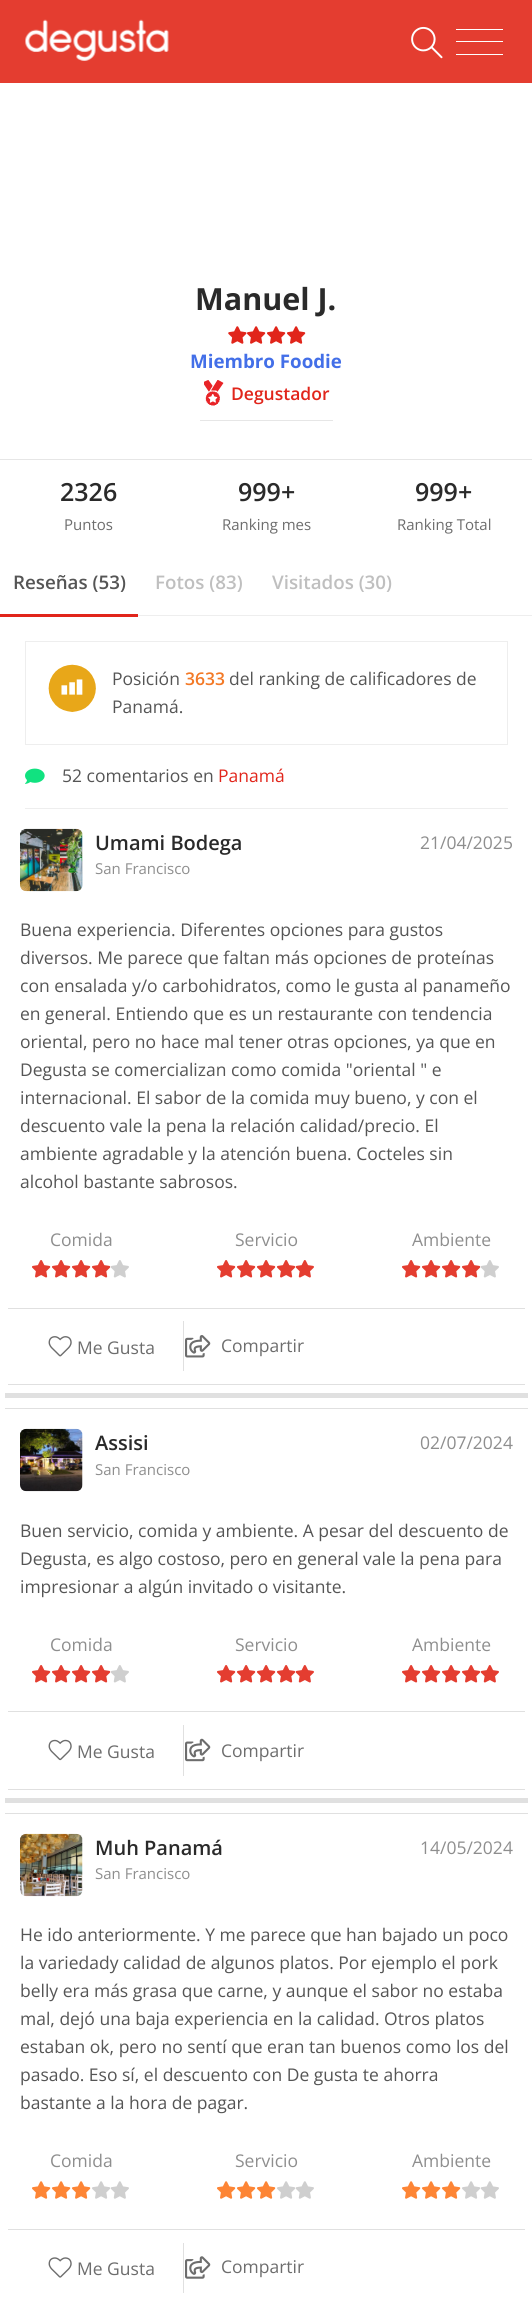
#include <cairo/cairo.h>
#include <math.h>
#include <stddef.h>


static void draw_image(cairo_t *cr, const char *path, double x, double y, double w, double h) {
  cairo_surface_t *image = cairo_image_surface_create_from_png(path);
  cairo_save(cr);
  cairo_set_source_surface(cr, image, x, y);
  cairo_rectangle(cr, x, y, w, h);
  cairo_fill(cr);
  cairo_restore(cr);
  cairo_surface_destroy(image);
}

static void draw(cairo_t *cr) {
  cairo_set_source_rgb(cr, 1, 1, 1);
  cairo_paint(cr);
  cairo_set_source_rgb(cr, 228 / 255.0, 61 / 255.0, 48 / 255.0);
  cairo_rectangle(cr, 0, 0, 532, 83);
  cairo_fill(cr);
  draw_image(cr, "images/1.png", 25, 19, 144, 42);
  draw_image(cr, "images/2.png", 411, 26, 32, 33);
  cairo_set_source_rgb(cr, 1, 1, 1);
  cairo_rectangle(cr, 456, 29, 47, 1);
  cairo_fill(cr);
  cairo_rectangle(cr, 456, 41, 47, 1);
  cairo_fill(cr);
  cairo_rectangle(cr, 456, 54, 47, 1);
  cairo_fill(cr);
  draw_image(cr, "images/3.png", 228, 326, 19, 18);
  draw_image(cr, "images/4.png", 247, 326, 19, 18);
  draw_image(cr, "images/4.png", 267, 326, 19, 18);
  draw_image(cr, "images/4.png", 287, 326, 19, 18);
  draw_image(cr, "images/5.png", 204, 380, 20, 26);
  cairo_set_source_rgb(cr, 230 / 255.0, 230 / 255.0, 230 / 255.0);
  cairo_rectangle(cr, 200, 420, 133, 1);
  cairo_fill(cr);
  cairo_rectangle(cr, 0, 459, 532, 1);
  cairo_fill(cr);
  cairo_set_source_rgb(cr, 238 / 255.0, 238 / 255.0, 238 / 255.0);
  cairo_rectangle(cr, 138, 615, 394, 1);
  cairo_fill(cr);
  cairo_set_source_rgb(cr, 225 / 255.0, 37 / 255.0, 27 / 255.0);
  cairo_rectangle(cr, 0, 614, 138, 3);
  cairo_fill(cr);
  cairo_rectangle(cr, 25.5, 641.5, 482, 103);
  cairo_set_source_rgb(cr, 238 / 255.0, 238 / 255.0, 238 / 255.0);
  cairo_set_line_width(cr, 1);
  cairo_stroke(cr);
  draw_image(cr, "images/6.png", 48, 664, 48, 48);
  cairo_rectangle(cr, 25, 808, 483, 1);
  cairo_fill(cr);
  draw_image(cr, "images/7.png", 25, 768, 20, 16);
  cairo_set_source_rgb(cr, 224 / 255.0, 224 / 255.0, 224 / 255.0);
  cairo_rectangle(cr, 5, 1393, 523, 5);
  cairo_fill(cr);
  draw_image(cr, "images/8.png", 20, 828, 63, 64);
  draw_image(cr, "images/9.png", 32, 1260, 19, 18);
  draw_image(cr, "images/9.png", 52, 1260, 19, 18);
  draw_image(cr, "images/9.png", 72, 1260, 19, 18);
  draw_image(cr, "images/9.png", 92, 1260, 19, 18);
  draw_image(cr, "images/10.png", 110, 1260, 19, 18);
  draw_image(cr, "images/9.png", 217, 1260, 19, 18);
  draw_image(cr, "images/9.png", 237, 1260, 19, 18);
  draw_image(cr, "images/9.png", 257, 1260, 19, 18);
  draw_image(cr, "images/9.png", 277, 1260, 19, 18);
  draw_image(cr, "images/11.png", 295, 1260, 19, 18);
  draw_image(cr, "images/9.png", 402, 1260, 19, 18);
  draw_image(cr, "images/9.png", 422, 1260, 19, 18);
  draw_image(cr, "images/9.png", 442, 1260, 19, 18);
  draw_image(cr, "images/9.png", 462, 1260, 19, 18);
  draw_image(cr, "images/10.png", 480, 1260, 19, 18);
  cairo_rectangle(cr, 8, 1308, 517, 1);
  cairo_fill(cr);
  cairo_rectangle(cr, 8, 1384, 517, 1);
  cairo_fill(cr);
  cairo_rectangle(cr, 183, 1321, 1, 50);
  cairo_fill(cr);
  draw_image(cr, "images/12.png", 48, 1336, 24, 21);
  draw_image(cr, "images/13.png", 185, 1335, 26, 23);
  cairo_rectangle(cr, 5, 1408, 523, 1);
  cairo_fill(cr);
  cairo_rectangle(cr, 5, 1798, 523, 5);
  cairo_fill(cr);
  draw_image(cr, "images/14.png", 20, 1428, 63, 64);
  draw_image(cr, "images/9.png", 32, 1665, 19, 18);
  draw_image(cr, "images/9.png", 52, 1665, 19, 18);
  draw_image(cr, "images/9.png", 72, 1665, 19, 18);
  draw_image(cr, "images/9.png", 92, 1665, 19, 18);
  draw_image(cr, "images/10.png", 110, 1665, 19, 18);
  draw_image(cr, "images/9.png", 217, 1665, 19, 18);
  draw_image(cr, "images/9.png", 237, 1665, 19, 18);
  draw_image(cr, "images/9.png", 257, 1665, 19, 18);
  draw_image(cr, "images/9.png", 277, 1665, 19, 18);
  draw_image(cr, "images/11.png", 295, 1665, 19, 18);
  draw_image(cr, "images/9.png", 402, 1665, 19, 18);
  draw_image(cr, "images/9.png", 422, 1665, 19, 18);
  draw_image(cr, "images/9.png", 442, 1665, 19, 18);
  draw_image(cr, "images/9.png", 462, 1665, 19, 18);
  draw_image(cr, "images/11.png", 480, 1665, 19, 18);
  cairo_rectangle(cr, 8, 1711, 517, 1);
  cairo_fill(cr);
  cairo_rectangle(cr, 8, 1789, 517, 1);
  cairo_fill(cr);
  cairo_rectangle(cr, 183, 1725, 1, 51);
  cairo_fill(cr);
  draw_image(cr, "images/15.png", 48, 1739, 24, 22);
  draw_image(cr, "images/16.png", 185, 1738, 26, 24);
  cairo_rectangle(cr, 5, 1813, 523, 1);
  cairo_fill(cr);
  draw_image(cr, "images/17.png", 20, 1833, 63, 64);
  draw_image(cr, "images/18.png", 32, 2181, 19, 18);
  draw_image(cr, "images/18.png", 52, 2181, 19, 18);
  draw_image(cr, "images/18.png", 72, 2181, 19, 18);
  draw_image(cr, "images/19.png", 92, 2181, 19, 18);
  draw_image(cr, "images/20.png", 110, 2181, 19, 18);
  draw_image(cr, "images/18.png", 217, 2181, 19, 18);
  draw_image(cr, "images/18.png", 237, 2181, 19, 18);
  draw_image(cr, "images/18.png", 257, 2181, 19, 18);
  draw_image(cr, "images/19.png", 277, 2181, 19, 18);
  draw_image(cr, "images/20.png", 295, 2181, 19, 18);
  draw_image(cr, "images/18.png", 402, 2181, 19, 18);
  draw_image(cr, "images/18.png", 422, 2181, 19, 18);
  draw_image(cr, "images/18.png", 442, 2181, 19, 18);
  draw_image(cr, "images/19.png", 462, 2181, 19, 18);
  draw_image(cr, "images/20.png", 480, 2181, 19, 18);
  cairo_rectangle(cr, 8, 2229, 517, 1);
  cairo_fill(cr);
  cairo_rectangle(cr, 183, 2243, 1, 50);
  cairo_fill(cr);
  draw_image(cr, "images/21.png", 48, 2257, 24, 21);
  draw_image(cr, "images/22.png", 185, 2256, 26, 23);
  cairo_select_font_face(cr, "Open Sans", CAIRO_FONT_SLANT_NORMAL, CAIRO_FONT_WEIGHT_BOLD);
  cairo_set_font_size(cr, 30.5);
  cairo_set_source_rgb(cr, 42 / 255.0, 42 / 255.0, 42 / 255.0);
  cairo_move_to(cr, 195, 310);
  cairo_show_text(cr, "Manuel J.");
  cairo_set_font_size(cr, 18.75);
  cairo_set_source_rgb(cr, 67 / 255.0, 111 / 255.0, 232 / 255.0);
  cairo_move_to(cr, 190, 368);
  cairo_show_text(cr, "Miembro Foodie");
  cairo_select_font_face(cr, "Open Sans SemiBold", CAIRO_FONT_SLANT_NORMAL, CAIRO_FONT_WEIGHT_NORMAL);
  cairo_set_font_size(cr, 17.5);
  cairo_set_source_rgb(cr, 225 / 255.0, 37 / 255.0, 27 / 255.0);
  cairo_move_to(cr, 231, 400);
  cairo_show_text(cr, "Degustador");
  cairo_set_font_size(cr, 25);
  cairo_set_source_rgb(cr, 42 / 255.0, 42 / 255.0, 42 / 255.0);
  cairo_move_to(cr, 60, 501);
  cairo_show_text(cr, "2326");
  cairo_select_font_face(cr, "Open Sans", CAIRO_FONT_SLANT_NORMAL, CAIRO_FONT_WEIGHT_NORMAL);
  cairo_set_font_size(cr, 15);
  cairo_set_source_rgb(cr, 109 / 255.0, 109 / 255.0, 109 / 255.0);
  cairo_move_to(cr, 64, 530);
  cairo_show_text(cr, "Puntos");
  cairo_select_font_face(cr, "Open Sans SemiBold", CAIRO_FONT_SLANT_NORMAL, CAIRO_FONT_WEIGHT_NORMAL);
  cairo_set_font_size(cr, 25);
  cairo_set_source_rgb(cr, 42 / 255.0, 42 / 255.0, 42 / 255.0);
  cairo_move_to(cr, 238, 501);
  cairo_show_text(cr, "999+");
  cairo_select_font_face(cr, "Open Sans", CAIRO_FONT_SLANT_NORMAL, CAIRO_FONT_WEIGHT_NORMAL);
  cairo_set_font_size(cr, 15);
  cairo_set_source_rgb(cr, 109 / 255.0, 109 / 255.0, 109 / 255.0);
  cairo_move_to(cr, 222, 530);
  cairo_show_text(cr, "Ranking mes");
  cairo_select_font_face(cr, "Open Sans SemiBold", CAIRO_FONT_SLANT_NORMAL, CAIRO_FONT_WEIGHT_NORMAL);
  cairo_set_font_size(cr, 25);
  cairo_set_source_rgb(cr, 42 / 255.0, 42 / 255.0, 42 / 255.0);
  cairo_move_to(cr, 415, 501);
  cairo_show_text(cr, "999+");
  cairo_select_font_face(cr, "Open Sans", CAIRO_FONT_SLANT_NORMAL, CAIRO_FONT_WEIGHT_NORMAL);
  cairo_set_font_size(cr, 15);
  cairo_set_source_rgb(cr, 109 / 255.0, 109 / 255.0, 109 / 255.0);
  cairo_move_to(cr, 397, 530);
  cairo_show_text(cr, "Ranking Total");
  cairo_select_font_face(cr, "Open Sans SemiBold", CAIRO_FONT_SLANT_NORMAL, CAIRO_FONT_WEIGHT_NORMAL);
  cairo_set_font_size(cr, 18.75);
  cairo_set_source_rgb(cr, 85 / 255.0, 85 / 255.0, 85 / 255.0);
  cairo_move_to(cr, 13, 589);
  cairo_show_text(cr, "Reseñas (53)");
  cairo_set_source_rgb(cr, 191 / 255.0, 191 / 255.0, 191 / 255.0);
  cairo_move_to(cr, 155, 589);
  cairo_show_text(cr, "Fotos (83)");
  cairo_move_to(cr, 272, 589);
  cairo_show_text(cr, "Visitados (30)");
  cairo_select_font_face(cr, "Open Sans", CAIRO_FONT_SLANT_NORMAL, CAIRO_FONT_WEIGHT_NORMAL);
  cairo_set_font_size(cr, 17.5);
  cairo_set_source_rgb(cr, 85 / 255.0, 85 / 255.0, 85 / 255.0);
  cairo_move_to(cr, 112, 685);
  cairo_show_text(cr, "Posición");
  cairo_select_font_face(cr, "Open Sans SemiBold", CAIRO_FONT_SLANT_NORMAL, CAIRO_FONT_WEIGHT_NORMAL);
  cairo_set_source_rgb(cr, 243 / 255.0, 121 / 255.0, 38 / 255.0);
  cairo_move_to(cr, 185, 685);
  cairo_show_text(cr, "3633");
  cairo_select_font_face(cr, "Open Sans", CAIRO_FONT_SLANT_NORMAL, CAIRO_FONT_WEIGHT_NORMAL);
  cairo_set_source_rgb(cr, 85 / 255.0, 85 / 255.0, 85 / 255.0);
  cairo_move_to(cr, 229, 685);
  cairo_show_text(cr, "del ranking de calificadores de");
  cairo_move_to(cr, 112, 713);
  cairo_show_text(cr, "Panamá.");
  cairo_move_to(cr, 62, 782);
  cairo_show_text(cr, "52 comentarios en");
  cairo_set_source_rgb(cr, 225 / 255.0, 37 / 255.0, 27 / 255.0);
  cairo_move_to(cr, 218, 782);
  cairo_show_text(cr, "Panamá");
  cairo_select_font_face(cr, "Open Sans SemiBold", CAIRO_FONT_SLANT_NORMAL, CAIRO_FONT_WEIGHT_NORMAL);
  cairo_set_font_size(cr, 20);
  cairo_set_source_rgb(cr, 42 / 255.0, 42 / 255.0, 42 / 255.0);
  cairo_move_to(cr, 95, 850);
  cairo_show_text(cr, "Umami Bodega");
  cairo_select_font_face(cr, "Open Sans", CAIRO_FONT_SLANT_NORMAL, CAIRO_FONT_WEIGHT_NORMAL);
  cairo_set_font_size(cr, 15);
  cairo_set_source_rgb(cr, 142 / 255.0, 142 / 255.0, 142 / 255.0);
  cairo_move_to(cr, 95, 874);
  cairo_show_text(cr, "San Francisco");
  cairo_set_font_size(cr, 17.5);
  cairo_move_to(cr, 420, 849);
  cairo_show_text(cr, "21/04/2025");
  cairo_set_source_rgb(cr, 85 / 255.0, 85 / 255.0, 85 / 255.0);
  cairo_move_to(cr, 20, 936);
  cairo_show_text(cr, "Buena experiencia. Diferentes opciones para gustos");
  cairo_move_to(cr, 20, 964);
  cairo_show_text(cr, "diversos. Me parece que faltan más opciones de proteínas");
  cairo_move_to(cr, 20, 992);
  cairo_show_text(cr, "con ensalada y/o carbohidratos, como le gusta al panameño");
  cairo_move_to(cr, 20, 1020);
  cairo_show_text(cr, "en general. Entiendo que es un restaurante con tendencia");
  cairo_move_to(cr, 20, 1048);
  cairo_show_text(cr, "oriental, pero no hace mal tener otras opciones, ya que en");
  cairo_move_to(cr, 20, 1076);
  cairo_show_text(cr, "Degusta se comercializan como comida \"oriental \" e");
  cairo_move_to(cr, 20, 1104);
  cairo_show_text(cr, "internacional. El sabor de la comida muy bueno, y con el");
  cairo_move_to(cr, 20, 1132);
  cairo_show_text(cr, "descuento vale la pena la relación calidad/precio. El");
  cairo_move_to(cr, 20, 1160);
  cairo_show_text(cr, "ambiente agradable y la atención buena. Cocteles sin");
  cairo_move_to(cr, 20, 1188);
  cairo_show_text(cr, "alcohol bastante sabrosos.");
  cairo_set_source_rgb(cr, 142 / 255.0, 142 / 255.0, 142 / 255.0);
  cairo_move_to(cr, 50, 1246);
  cairo_show_text(cr, "Comida");
  cairo_move_to(cr, 235, 1246);
  cairo_show_text(cr, "Servicio");
  cairo_move_to(cr, 412, 1246);
  cairo_show_text(cr, "Ambiente");
  cairo_set_source_rgb(cr, 109 / 255.0, 109 / 255.0, 109 / 255.0);
  cairo_move_to(cr, 77, 1354);
  cairo_show_text(cr, "Me Gusta");
  cairo_move_to(cr, 221, 1352);
  cairo_show_text(cr, "Compartir");
  cairo_select_font_face(cr, "Open Sans SemiBold", CAIRO_FONT_SLANT_NORMAL, CAIRO_FONT_WEIGHT_NORMAL);
  cairo_set_font_size(cr, 20);
  cairo_set_source_rgb(cr, 42 / 255.0, 42 / 255.0, 42 / 255.0);
  cairo_move_to(cr, 95, 1450);
  cairo_show_text(cr, "Assisi");
  cairo_select_font_face(cr, "Open Sans", CAIRO_FONT_SLANT_NORMAL, CAIRO_FONT_WEIGHT_NORMAL);
  cairo_set_font_size(cr, 15);
  cairo_set_source_rgb(cr, 142 / 255.0, 142 / 255.0, 142 / 255.0);
  cairo_move_to(cr, 95, 1475);
  cairo_show_text(cr, "San Francisco");
  cairo_set_font_size(cr, 17.5);
  cairo_move_to(cr, 420, 1449);
  cairo_show_text(cr, "02/07/2024");
  cairo_set_source_rgb(cr, 85 / 255.0, 85 / 255.0, 85 / 255.0);
  cairo_move_to(cr, 20, 1537);
  cairo_show_text(cr, "Buen servicio, comida y ambiente. A pesar del descuento de");
  cairo_move_to(cr, 20, 1565);
  cairo_show_text(cr, "Degusta, es algo costoso, pero en general vale la pena para");
  cairo_move_to(cr, 20, 1593);
  cairo_show_text(cr, "impresionar a algún invitado o visitante.");
  cairo_set_source_rgb(cr, 142 / 255.0, 142 / 255.0, 142 / 255.0);
  cairo_move_to(cr, 50, 1651);
  cairo_show_text(cr, "Comida");
  cairo_move_to(cr, 235, 1651);
  cairo_show_text(cr, "Servicio");
  cairo_move_to(cr, 412, 1651);
  cairo_show_text(cr, "Ambiente");
  cairo_set_source_rgb(cr, 109 / 255.0, 109 / 255.0, 109 / 255.0);
  cairo_move_to(cr, 77, 1758);
  cairo_show_text(cr, "Me Gusta");
  cairo_move_to(cr, 221, 1757);
  cairo_show_text(cr, "Compartir");
  cairo_select_font_face(cr, "Open Sans SemiBold", CAIRO_FONT_SLANT_NORMAL, CAIRO_FONT_WEIGHT_NORMAL);
  cairo_set_font_size(cr, 20);
  cairo_set_source_rgb(cr, 42 / 255.0, 42 / 255.0, 42 / 255.0);
  cairo_move_to(cr, 95, 1855);
  cairo_show_text(cr, "Muh Panamá");
  cairo_select_font_face(cr, "Open Sans", CAIRO_FONT_SLANT_NORMAL, CAIRO_FONT_WEIGHT_NORMAL);
  cairo_set_font_size(cr, 15);
  cairo_set_source_rgb(cr, 142 / 255.0, 142 / 255.0, 142 / 255.0);
  cairo_move_to(cr, 95, 1879);
  cairo_show_text(cr, "San Francisco");
  cairo_set_font_size(cr, 17.5);
  cairo_move_to(cr, 420, 1854);
  cairo_show_text(cr, "14/05/2024");
  cairo_set_source_rgb(cr, 85 / 255.0, 85 / 255.0, 85 / 255.0);
  cairo_move_to(cr, 20, 1941);
  cairo_show_text(cr, "He ido anteriormente. Y me parece que han bajado un poco");
  cairo_move_to(cr, 20, 1969);
  cairo_show_text(cr, "la variedady calidad de algunos platos. Por ejemplo el pork");
  cairo_move_to(cr, 20, 1997);
  cairo_show_text(cr, "belly era más grasa que carne, y aunque el sabor no estaba");
  cairo_move_to(cr, 20, 2025);
  cairo_show_text(cr, "mal, dejó una baja experiencia en la calidad. Otros platos");
  cairo_move_to(cr, 20, 2053);
  cairo_show_text(cr, "estaban ok, pero no sentí que eran tan buenos como los del");
  cairo_move_to(cr, 20, 2081);
  cairo_show_text(cr, "pasado. Eso sí, el descuento con De gusta te ahorra");
  cairo_move_to(cr, 20, 2109);
  cairo_show_text(cr, "bastante a la hora de pagar.");
  cairo_set_source_rgb(cr, 142 / 255.0, 142 / 255.0, 142 / 255.0);
  cairo_move_to(cr, 50, 2167);
  cairo_show_text(cr, "Comida");
  cairo_move_to(cr, 235, 2167);
  cairo_show_text(cr, "Servicio");
  cairo_move_to(cr, 412, 2167);
  cairo_show_text(cr, "Ambiente");
  cairo_set_source_rgb(cr, 109 / 255.0, 109 / 255.0, 109 / 255.0);
  cairo_move_to(cr, 77, 2275);
  cairo_show_text(cr, "Me Gusta");
  cairo_move_to(cr, 221, 2273);
  cairo_show_text(cr, "Compartir");
}

int main(void) {
  cairo_surface_t *surface = cairo_image_surface_create(CAIRO_FORMAT_RGB24, 532, 2305);
  cairo_t *cr = cairo_create(surface);
  cairo_font_options_t *options = cairo_font_options_create();
  cairo_font_options_set_hint_metrics(options, CAIRO_HINT_METRICS_OFF);
  cairo_font_options_set_hint_style(options, CAIRO_HINT_STYLE_NONE);
  cairo_set_font_options(cr, options);
  cairo_set_miter_limit(cr, 4);
  draw(cr);
  cairo_surface_write_to_png(surface, "out.png");
  cairo_font_options_destroy(options);
  cairo_destroy(cr);
  cairo_surface_destroy(surface);
  return 0;
}
